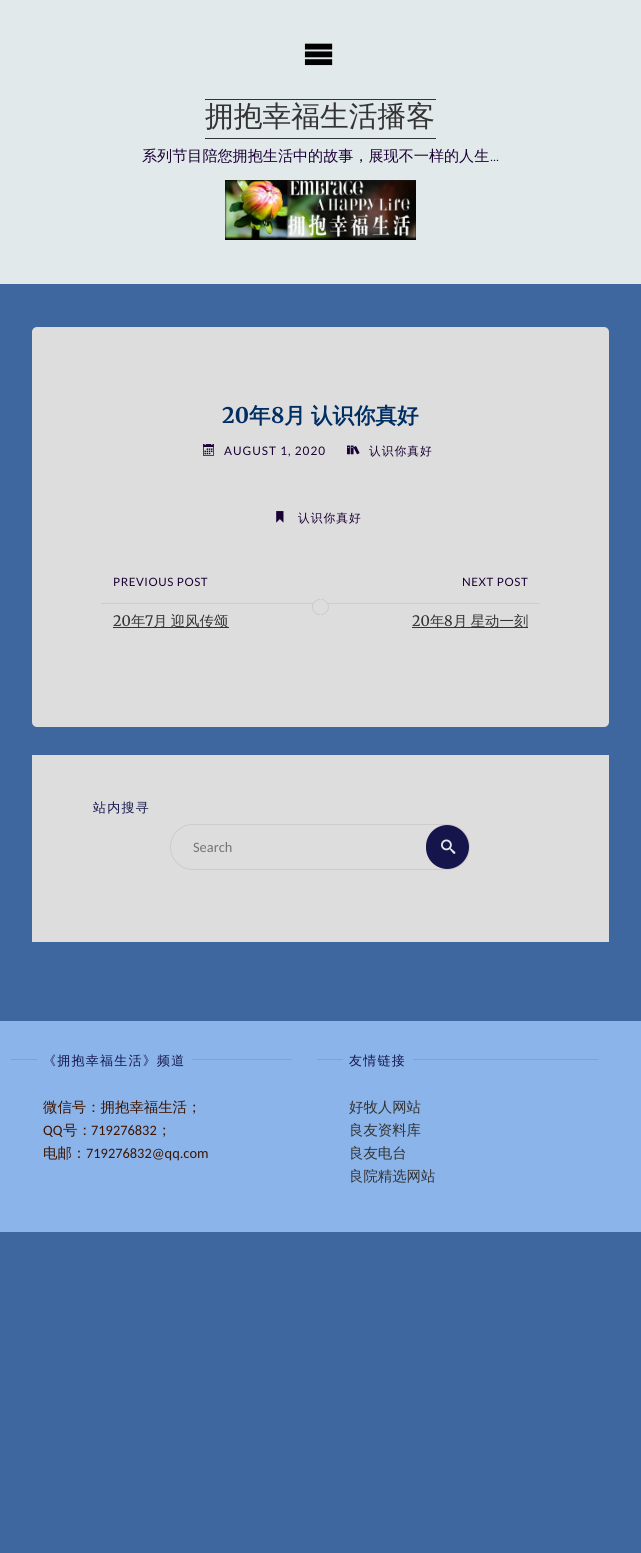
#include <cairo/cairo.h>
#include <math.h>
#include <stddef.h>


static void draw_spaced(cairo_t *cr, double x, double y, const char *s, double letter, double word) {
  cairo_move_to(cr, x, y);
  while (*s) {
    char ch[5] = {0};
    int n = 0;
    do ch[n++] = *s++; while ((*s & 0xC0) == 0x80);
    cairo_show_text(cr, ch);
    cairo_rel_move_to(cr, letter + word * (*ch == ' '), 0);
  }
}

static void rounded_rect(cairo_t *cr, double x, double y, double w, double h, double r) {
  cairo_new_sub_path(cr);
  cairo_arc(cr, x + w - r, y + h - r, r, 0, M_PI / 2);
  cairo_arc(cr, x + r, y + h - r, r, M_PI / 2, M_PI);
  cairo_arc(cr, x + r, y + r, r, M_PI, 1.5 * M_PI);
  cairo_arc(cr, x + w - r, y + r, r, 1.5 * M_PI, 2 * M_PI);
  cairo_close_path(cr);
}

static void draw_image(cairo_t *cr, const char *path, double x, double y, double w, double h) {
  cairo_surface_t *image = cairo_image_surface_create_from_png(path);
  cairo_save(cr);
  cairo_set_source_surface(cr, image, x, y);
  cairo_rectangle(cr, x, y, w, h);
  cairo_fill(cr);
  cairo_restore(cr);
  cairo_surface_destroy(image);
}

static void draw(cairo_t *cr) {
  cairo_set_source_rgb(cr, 61 / 255.0, 103 / 255.0, 158 / 255.0);
  cairo_paint(cr);
  cairo_set_source_rgb(cr, 225 / 255.0, 233 / 255.0, 234 / 255.0);
  cairo_rectangle(cr, 0, 0, 641, 284);
  cairo_fill(cr);
  draw_image(cr, "images/1.png", 304, 43, 29, 23);
  cairo_set_source_rgb(cr, 51 / 255.0, 51 / 255.0, 51 / 255.0);
  cairo_rectangle(cr, 205, 99, 231, 1);
  cairo_fill(cr);
  cairo_rectangle(cr, 205, 138, 231, 1);
  cairo_fill(cr);
  draw_image(cr, "images/2.png", 225, 180, 191, 60);
  cairo_set_source_rgb(cr, 221 / 255.0, 221 / 255.0, 221 / 255.0);
  rounded_rect(cr, 32, 327, 577, 400, 5);
  cairo_fill(cr);
  draw_image(cr, "images/3.png", 203, 444, 11, 12);
  draw_image(cr, "images/4.png", 347, 445, 13, 10);
  draw_image(cr, "images/5.png", 276, 511, 8, 12);
  cairo_set_source_rgb(cr, 204 / 255.0, 204 / 255.0, 204 / 255.0);
  cairo_rectangle(cr, 101, 603, 219, 1);
  cairo_fill(cr);
  cairo_set_source_rgb(cr, 221 / 255.0, 221 / 255.0, 221 / 255.0);
  cairo_new_path(cr);
  cairo_move_to(cr, 320, 599);
  cairo_line_to(cr, 320, 615);
  cairo_curve_to(cr, 315.5, 615, 312, 611.5, 312, 607);
  cairo_curve_to(cr, 312, 602.5, 315.5, 599, 320, 599);
  cairo_close_path(cr);
  cairo_fill(cr);
  cairo_set_source_rgb(cr, 204 / 255.0, 204 / 255.0, 204 / 255.0);
  cairo_rectangle(cr, 321, 603, 219, 1);
  cairo_fill(cr);
  cairo_save(cr);
  cairo_rectangle(cr, 101, 573, 219, 67);
  cairo_clip(cr);
  cairo_arc(cr, 320, 607, 7.5, 0, 2 * M_PI);
  cairo_set_line_width(cr, 1);
  cairo_stroke(cr);
  cairo_restore(cr);
  cairo_set_source_rgb(cr, 51 / 255.0, 51 / 255.0, 51 / 255.0);
  cairo_rectangle(cr, 113, 627, 116, 1);
  cairo_fill(cr);
  cairo_set_source_rgb(cr, 221 / 255.0, 221 / 255.0, 221 / 255.0);
  cairo_new_path(cr);
  cairo_move_to(cr, 321, 599);
  cairo_curve_to(cr, 325.5, 599, 329, 602.5, 329, 607);
  cairo_curve_to(cr, 329, 611.5, 325.5, 615, 321, 615);
  cairo_close_path(cr);
  cairo_fill(cr);
  cairo_save(cr);
  cairo_rectangle(cr, 321, 573, 219, 67);
  cairo_clip(cr);
  cairo_arc(cr, 321, 607, 7.5, 0, 2 * M_PI);
  cairo_set_source_rgb(cr, 204 / 255.0, 204 / 255.0, 204 / 255.0);
  cairo_set_line_width(cr, 1);
  cairo_stroke(cr);
  cairo_restore(cr);
  cairo_set_source_rgb(cr, 51 / 255.0, 51 / 255.0, 51 / 255.0);
  cairo_rectangle(cr, 412, 627, 116, 1);
  cairo_fill(cr);
  cairo_set_source_rgb(cr, 221 / 255.0, 221 / 255.0, 221 / 255.0);
  cairo_rectangle(cr, 32, 755, 577, 187);
  cairo_fill(cr);
  rounded_rect(cr, 170.5, 824.5, 299, 45, 22.5);
  cairo_set_source_rgb(cr, 204 / 255.0, 204 / 255.0, 204 / 255.0);
  cairo_set_line_width(cr, 1);
  cairo_stroke(cr);
  cairo_set_source_rgb(cr, 21 / 255.0, 21 / 255.0, 76 / 255.0);
  cairo_new_path(cr);
  cairo_move_to(cr, 447.5, 825);
  cairo_line_to(cr, 447, 825);
  cairo_curve_to(cr, 459, 825, 469, 835, 469, 847);
  cairo_curve_to(cr, 469, 859, 459, 869, 447, 869);
  cairo_line_to(cr, 447.5, 869);
  cairo_curve_to(cr, 435.5, 869, 426, 859.5, 426, 847.5);
  cairo_line_to(cr, 426, 846.5);
  cairo_curve_to(cr, 426, 834.5, 435.5, 825, 447.5, 825);
  cairo_close_path(cr);
  cairo_fill(cr);
  draw_image(cr, "images/6.png", 441, 839, 15, 15);
  cairo_set_source_rgb(cr, 138 / 255.0, 180 / 255.0, 234 / 255.0);
  cairo_rectangle(cr, 0, 1021, 641, 211);
  cairo_fill(cr);
  cairo_set_source_rgb(cr, 121 / 255.0, 163 / 255.0, 217 / 255.0);
  cairo_rectangle(cr, 11, 1059, 281, 1);
  cairo_fill(cr);
  cairo_set_source_rgb(cr, 138 / 255.0, 180 / 255.0, 234 / 255.0);
  cairo_rectangle(cr, 37, 1059, 155, 1);
  cairo_fill(cr);
  cairo_set_source_rgb(cr, 121 / 255.0, 163 / 255.0, 217 / 255.0);
  cairo_rectangle(cr, 317, 1059, 281, 1);
  cairo_fill(cr);
  cairo_set_source_rgb(cr, 138 / 255.0, 180 / 255.0, 234 / 255.0);
  cairo_rectangle(cr, 343, 1059, 70, 1);
  cairo_fill(cr);
  cairo_select_font_face(cr, "WenQuanYi Zen Hei Medium", CAIRO_FONT_SLANT_NORMAL, CAIRO_FONT_WEIGHT_NORMAL);
  cairo_set_font_size(cr, 28.75);
  cairo_set_source_rgb(cr, 51 / 255.0, 51 / 255.0, 51 / 255.0);
  cairo_move_to(cr, 205, 126);
  cairo_show_text(cr, "拥抱幸福生活播客");
  cairo_set_font_size(cr, 15.1);
  cairo_set_source_rgb(cr, 27 / 255.0, 0, 53 / 255.0);
  cairo_move_to(cr, 142, 161);
  cairo_show_text(cr, "系列节目陪您拥抱生活中的故事，展现不一样的人生");
  cairo_select_font_face(cr, "Lato Light", CAIRO_FONT_SLANT_NORMAL, CAIRO_FONT_WEIGHT_NORMAL);
  cairo_move_to(cr, 490, 161);
  cairo_show_text(cr, "...");
  cairo_select_font_face(cr, "Merriweather", CAIRO_FONT_SLANT_NORMAL, CAIRO_FONT_WEIGHT_BOLD);
  cairo_set_font_size(cr, 21.5);
  cairo_set_source_rgb(cr, 0, 46 / 255.0, 99 / 255.0);
  cairo_move_to(cr, 222, 423);
  cairo_show_text(cr, "20");
  cairo_select_font_face(cr, "WenQuanYi Zen Hei", CAIRO_FONT_SLANT_NORMAL, CAIRO_FONT_WEIGHT_BOLD);
  cairo_move_to(cr, 249, 423);
  cairo_show_text(cr, "年");
  cairo_select_font_face(cr, "Merriweather", CAIRO_FONT_SLANT_NORMAL, CAIRO_FONT_WEIGHT_BOLD);
  cairo_move_to(cr, 271, 423);
  cairo_show_text(cr, "8");
  cairo_select_font_face(cr, "WenQuanYi Zen Hei", CAIRO_FONT_SLANT_NORMAL, CAIRO_FONT_WEIGHT_BOLD);
  draw_spaced(cr, 284, 423, "月 认识你真好", 0, -1);
  cairo_select_font_face(cr, "Lato", CAIRO_FONT_SLANT_NORMAL, CAIRO_FONT_WEIGHT_NORMAL);
  cairo_set_font_size(cr, 11.75);
  cairo_set_source_rgb(cr, 27 / 255.0, 0, 53 / 255.0);
  draw_spaced(cr, 224, 455, "AUGUST 1, 2020", 1, 0);
  cairo_select_font_face(cr, "WenQuanYi Zen Hei Medium", CAIRO_FONT_SLANT_NORMAL, CAIRO_FONT_WEIGHT_NORMAL);
  draw_spaced(cr, 369, 455, "认识你真好", 1, 0);
  draw_spaced(cr, 298, 522, "认识你真好", 1, 0);
  cairo_select_font_face(cr, "Lato", CAIRO_FONT_SLANT_NORMAL, CAIRO_FONT_WEIGHT_NORMAL);
  cairo_set_font_size(cr, 11.5);
  draw_spaced(cr, 113, 586, "PREVIOUS POST", 0.6, 0);
  cairo_select_font_face(cr, "Merriweather", CAIRO_FONT_SLANT_NORMAL, CAIRO_FONT_WEIGHT_NORMAL);
  cairo_set_font_size(cr, 14.4);
  cairo_set_source_rgb(cr, 51 / 255.0, 51 / 255.0, 51 / 255.0);
  cairo_move_to(cr, 113, 626);
  cairo_show_text(cr, "20");
  cairo_select_font_face(cr, "WenQuanYi Zen Hei Medium", CAIRO_FONT_SLANT_NORMAL, CAIRO_FONT_WEIGHT_NORMAL);
  cairo_move_to(cr, 131, 626);
  cairo_show_text(cr, "年");
  cairo_select_font_face(cr, "Merriweather", CAIRO_FONT_SLANT_NORMAL, CAIRO_FONT_WEIGHT_NORMAL);
  cairo_move_to(cr, 145, 626);
  cairo_show_text(cr, "7");
  cairo_select_font_face(cr, "WenQuanYi Zen Hei Medium", CAIRO_FONT_SLANT_NORMAL, CAIRO_FONT_WEIGHT_NORMAL);
  draw_spaced(cr, 153, 626, "月 迎风传颂", 0, -1);
  cairo_select_font_face(cr, "Lato", CAIRO_FONT_SLANT_NORMAL, CAIRO_FONT_WEIGHT_NORMAL);
  cairo_set_font_size(cr, 11.5);
  cairo_set_source_rgb(cr, 27 / 255.0, 0, 53 / 255.0);
  draw_spaced(cr, 462, 586, "NEXT POST", 0.6, 0);
  cairo_select_font_face(cr, "Merriweather", CAIRO_FONT_SLANT_NORMAL, CAIRO_FONT_WEIGHT_NORMAL);
  cairo_set_font_size(cr, 14.4);
  cairo_set_source_rgb(cr, 51 / 255.0, 51 / 255.0, 51 / 255.0);
  cairo_move_to(cr, 412, 626);
  cairo_show_text(cr, "20");
  cairo_select_font_face(cr, "WenQuanYi Zen Hei Medium", CAIRO_FONT_SLANT_NORMAL, CAIRO_FONT_WEIGHT_NORMAL);
  cairo_move_to(cr, 430, 626);
  cairo_show_text(cr, "年");
  cairo_select_font_face(cr, "Merriweather", CAIRO_FONT_SLANT_NORMAL, CAIRO_FONT_WEIGHT_NORMAL);
  cairo_move_to(cr, 444, 626);
  cairo_show_text(cr, "8");
  cairo_select_font_face(cr, "WenQuanYi Zen Hei Medium", CAIRO_FONT_SLANT_NORMAL, CAIRO_FONT_WEIGHT_NORMAL);
  draw_spaced(cr, 453, 626, "月 星动一刻", 0, -1);
  cairo_set_font_size(cr, 13);
  cairo_set_source_rgb(cr, 21 / 255.0, 21 / 255.0, 76 / 255.0);
  draw_spaced(cr, 93, 812, "站内搜寻", 1.25, 0);
  cairo_select_font_face(cr, "Carlito", CAIRO_FONT_SLANT_NORMAL, CAIRO_FONT_WEIGHT_NORMAL);
  cairo_set_font_size(cr, 14.4);
  cairo_set_source_rgb(cr, 117 / 255.0, 117 / 255.0, 117 / 255.0);
  cairo_move_to(cr, 193, 852);
  cairo_show_text(cr, "Search");
  cairo_select_font_face(cr, "WenQuanYi Zen Hei Medium", CAIRO_FONT_SLANT_NORMAL, CAIRO_FONT_WEIGHT_NORMAL);
  cairo_set_font_size(cr, 13);
  cairo_set_source_rgb(cr, 21 / 255.0, 21 / 255.0, 76 / 255.0);
  draw_spaced(cr, 43, 1065, "《拥抱幸福生活》频道", 1.25, 0);
  cairo_set_font_size(cr, 14.4);
  cairo_set_source_rgb(cr, 61 / 255.0, 20 / 255.0, 0);
  cairo_move_to(cr, 43, 1112);
  cairo_show_text(cr, "微信号：拥抱幸福生活；");
  cairo_select_font_face(cr, "Carlito", CAIRO_FONT_SLANT_NORMAL, CAIRO_FONT_WEIGHT_NORMAL);
  cairo_move_to(cr, 43, 1135);
  cairo_show_text(cr, "QQ");
  cairo_select_font_face(cr, "WenQuanYi Zen Hei Medium", CAIRO_FONT_SLANT_NORMAL, CAIRO_FONT_WEIGHT_NORMAL);
  cairo_move_to(cr, 63, 1135);
  cairo_show_text(cr, "号：");
  cairo_select_font_face(cr, "Carlito", CAIRO_FONT_SLANT_NORMAL, CAIRO_FONT_WEIGHT_NORMAL);
  cairo_move_to(cr, 91, 1135);
  cairo_show_text(cr, "719276832");
  cairo_select_font_face(cr, "WenQuanYi Zen Hei Medium", CAIRO_FONT_SLANT_NORMAL, CAIRO_FONT_WEIGHT_NORMAL);
  cairo_move_to(cr, 157, 1135);
  cairo_show_text(cr, "；");
  cairo_move_to(cr, 43, 1158);
  cairo_show_text(cr, "电邮：");
  cairo_select_font_face(cr, "Carlito", CAIRO_FONT_SLANT_NORMAL, CAIRO_FONT_WEIGHT_NORMAL);
  cairo_move_to(cr, 86, 1158);
  cairo_show_text(cr, "719276832@qq.com");
  cairo_select_font_face(cr, "WenQuanYi Zen Hei Medium", CAIRO_FONT_SLANT_NORMAL, CAIRO_FONT_WEIGHT_NORMAL);
  cairo_set_font_size(cr, 13);
  cairo_set_source_rgb(cr, 21 / 255.0, 21 / 255.0, 76 / 255.0);
  draw_spaced(cr, 349, 1065, "友情链接", 1.25, 0);
  cairo_set_font_size(cr, 14.4);
  cairo_set_source_rgb(cr, 51 / 255.0, 51 / 255.0, 51 / 255.0);
  cairo_move_to(cr, 349, 1112);
  cairo_show_text(cr, "好牧人网站");
  cairo_move_to(cr, 349, 1135);
  cairo_show_text(cr, "良友资料库");
  cairo_move_to(cr, 349, 1158);
  cairo_show_text(cr, "良友电台");
  cairo_move_to(cr, 349, 1181);
  cairo_show_text(cr, "良院精选网站");
}

int main(void) {
  cairo_surface_t *surface = cairo_image_surface_create(CAIRO_FORMAT_RGB24, 641, 1553);
  cairo_t *cr = cairo_create(surface);
  cairo_font_options_t *options = cairo_font_options_create();
  cairo_font_options_set_hint_metrics(options, CAIRO_HINT_METRICS_OFF);
  cairo_font_options_set_hint_style(options, CAIRO_HINT_STYLE_NONE);
  cairo_set_font_options(cr, options);
  cairo_set_miter_limit(cr, 4);
  draw(cr);
  cairo_surface_write_to_png(surface, "out.png");
  cairo_font_options_destroy(options);
  cairo_destroy(cr);
  cairo_surface_destroy(surface);
  return 0;
}
